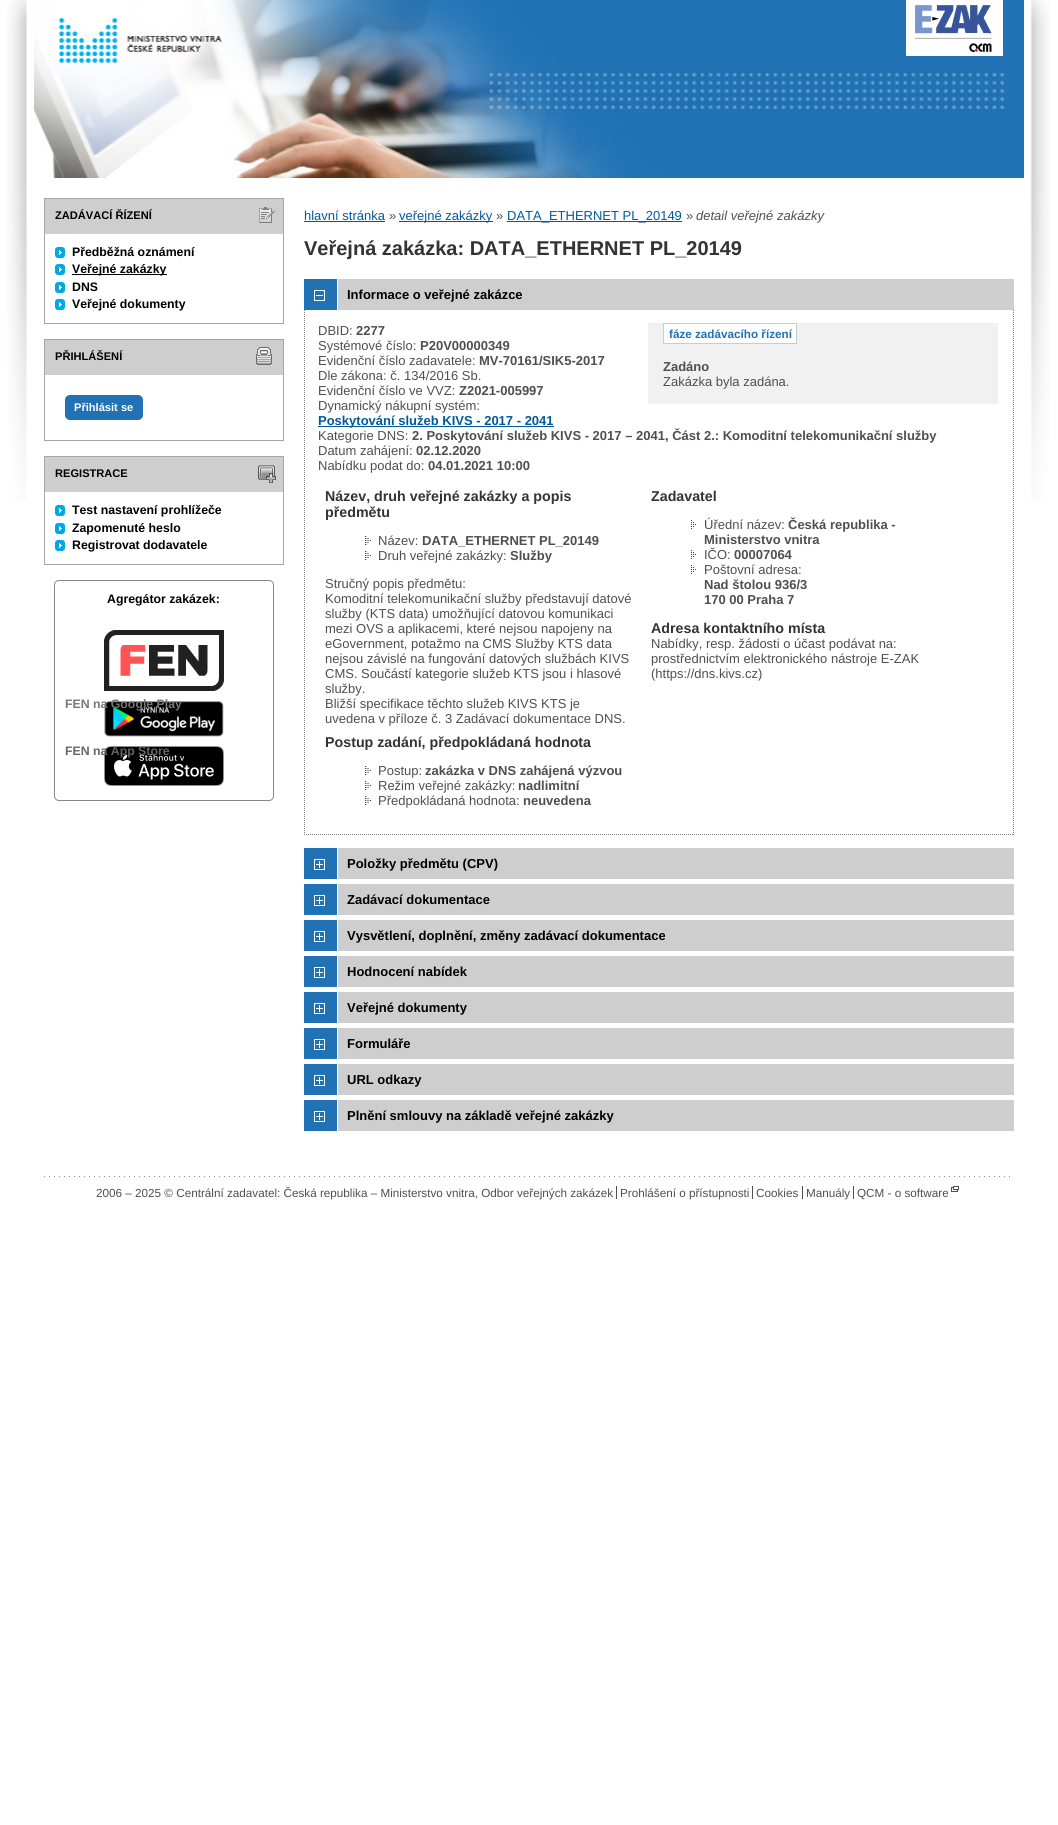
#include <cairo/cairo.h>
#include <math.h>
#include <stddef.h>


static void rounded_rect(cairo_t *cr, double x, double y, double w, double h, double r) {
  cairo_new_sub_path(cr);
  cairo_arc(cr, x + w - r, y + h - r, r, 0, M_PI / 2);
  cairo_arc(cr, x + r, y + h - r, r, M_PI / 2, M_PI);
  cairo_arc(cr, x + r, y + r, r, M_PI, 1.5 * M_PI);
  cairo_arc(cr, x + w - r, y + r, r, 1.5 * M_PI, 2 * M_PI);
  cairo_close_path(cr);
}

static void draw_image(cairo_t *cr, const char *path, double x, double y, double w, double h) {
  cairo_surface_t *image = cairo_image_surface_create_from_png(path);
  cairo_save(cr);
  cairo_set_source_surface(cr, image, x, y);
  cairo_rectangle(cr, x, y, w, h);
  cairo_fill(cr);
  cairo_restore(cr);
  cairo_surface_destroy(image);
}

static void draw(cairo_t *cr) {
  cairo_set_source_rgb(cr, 1, 1, 1);
  cairo_paint(cr);
  draw_image(cr, "images/1.png", 7, 0, 1043, 501);
  draw_image(cr, "images/2.png", 34, 0, 990, 178);
  cairo_set_source_rgb(cr, 1, 1, 1);
  cairo_rectangle(cr, 906, 0, 97, 56);
  cairo_fill(cr);
  draw_image(cr, "images/3.png", 915, 5, 77, 47);
  cairo_set_source_rgb(cr, 206 / 255.0, 206 / 255.0, 206 / 255.0);
  cairo_rectangle(cr, 45, 199, 238, 35);
  cairo_fill(cr);
  draw_image(cr, "images/4.png", 259, 207, 16, 16);
  cairo_set_source_rgb(cr, 166 / 255.0, 166 / 255.0, 166 / 255.0);
  cairo_rectangle(cr, 44, 198, 240, 1);
  cairo_fill(cr);
  cairo_rectangle(cr, 283, 198, 1, 126);
  cairo_fill(cr);
  cairo_rectangle(cr, 44, 198, 1, 36);
  cairo_fill(cr);
  cairo_rectangle(cr, 44, 323, 240, 1);
  cairo_fill(cr);
  cairo_rectangle(cr, 44, 234, 1, 90);
  cairo_fill(cr);
  draw_image(cr, "images/5.png", 55, 247, 10, 11);
  draw_image(cr, "images/5.png", 55, 264, 10, 11);
  cairo_set_source_rgb(cr, 0, 0, 0);
  cairo_rectangle(cr, 72, 274, 95, 1);
  cairo_fill(cr);
  draw_image(cr, "images/5.png", 55, 282, 10, 11);
  draw_image(cr, "images/5.png", 55, 299, 10, 11);
  cairo_set_source_rgb(cr, 206 / 255.0, 206 / 255.0, 206 / 255.0);
  cairo_rectangle(cr, 45, 340, 238, 35);
  cairo_fill(cr);
  draw_image(cr, "images/6.png", 256, 347, 16, 18);
  cairo_set_source_rgb(cr, 166 / 255.0, 166 / 255.0, 166 / 255.0);
  cairo_rectangle(cr, 44, 339, 240, 1);
  cairo_fill(cr);
  cairo_rectangle(cr, 283, 339, 1, 102);
  cairo_fill(cr);
  cairo_rectangle(cr, 44, 339, 1, 36);
  cairo_fill(cr);
  cairo_rectangle(cr, 44, 440, 240, 1);
  cairo_fill(cr);
  cairo_rectangle(cr, 44, 375, 1, 66);
  cairo_fill(cr);
  cairo_set_source_rgb(cr, 33 / 255.0, 114 / 255.0, 180 / 255.0);
  rounded_rect(cr, 65, 395, 78, 25, 5);
  cairo_fill(cr);
  cairo_set_source_rgb(cr, 206 / 255.0, 206 / 255.0, 206 / 255.0);
  cairo_rectangle(cr, 45, 457, 238, 35);
  cairo_fill(cr);
  draw_image(cr, "images/7.png", 258, 465, 18, 18);
  cairo_set_source_rgb(cr, 166 / 255.0, 166 / 255.0, 166 / 255.0);
  cairo_rectangle(cr, 44, 456, 240, 1);
  cairo_fill(cr);
  cairo_rectangle(cr, 283, 456, 1, 109);
  cairo_fill(cr);
  cairo_rectangle(cr, 44, 456, 1, 36);
  cairo_fill(cr);
  cairo_rectangle(cr, 44, 564, 240, 1);
  cairo_fill(cr);
  cairo_rectangle(cr, 44, 492, 1, 73);
  cairo_fill(cr);
  draw_image(cr, "images/5.png", 55, 505, 10, 11);
  draw_image(cr, "images/5.png", 55, 523, 10, 11);
  draw_image(cr, "images/5.png", 55, 540, 10, 11);
  rounded_rect(cr, 54.5, 580.5, 219, 220, 4.5);
  cairo_set_source_rgb(cr, 136 / 255.0, 136 / 255.0, 136 / 255.0);
  cairo_set_line_width(cr, 1);
  cairo_stroke(cr);
  draw_image(cr, "images/8.png", 104, 630, 120, 61);
  draw_image(cr, "images/9.png", 104, 701, 120, 36);
  draw_image(cr, "images/10.png", 104, 746, 120, 40);
  cairo_set_source_rgb(cr, 0, 89 / 255.0, 155 / 255.0);
  cairo_rectangle(cr, 304, 221, 81, 1);
  cairo_fill(cr);
  cairo_rectangle(cr, 399, 221, 94, 1);
  cairo_fill(cr);
  cairo_rectangle(cr, 507, 221, 175, 1);
  cairo_fill(cr);
  draw_image(cr, "images/11.png", 304, 279, 710, 31);
  draw_image(cr, "images/12.png", 314, 290, 11, 11);
  cairo_new_path(cr);
  cairo_move_to(cr, 1013.5, 310);
  cairo_line_to(cr, 1013.5, 835);
  cairo_set_source_rgb(cr, 127 / 255.0, 127 / 255.0, 127 / 255.0);
  cairo_set_dash(cr, (double[]){1, 1}, 2, 0);
  cairo_stroke(cr);
  cairo_new_path(cr);
  cairo_move_to(cr, 304, 834.5);
  cairo_line_to(cr, 1014, 834.5);
  cairo_stroke(cr);
  cairo_new_path(cr);
  cairo_move_to(cr, 304.5, 310);
  cairo_line_to(cr, 304.5, 835);
  cairo_stroke(cr);
  cairo_set_source_rgb(cr, 241 / 255.0, 241 / 255.0, 241 / 255.0);
  cairo_rectangle(cr, 648, 323, 350, 81);
  cairo_fill(cr);
  cairo_set_source_rgb(cr, 1, 1, 1);
  cairo_rectangle(cr, 663.5, 323.5, 133, 20);
  cairo_fill_preserve(cr);
  cairo_set_source_rgb(cr, 204 / 255.0, 204 / 255.0, 204 / 255.0);
  cairo_set_dash(cr, NULL, 0, 0);
  cairo_stroke(cr);
  cairo_set_source_rgb(cr, 0, 89 / 255.0, 155 / 255.0);
  cairo_rectangle(cr, 318, 426, 236, 1);
  cairo_fill(cr);
  draw_image(cr, "images/13.png", 365, 536, 6, 9);
  draw_image(cr, "images/13.png", 365, 551, 6, 9);
  draw_image(cr, "images/13.png", 365, 766, 6, 9);
  draw_image(cr, "images/13.png", 365, 781, 6, 9);
  draw_image(cr, "images/13.png", 365, 796, 6, 9);
  draw_image(cr, "images/14.png", 691, 520, 5, 9);
  draw_image(cr, "images/14.png", 691, 550, 5, 9);
  draw_image(cr, "images/14.png", 691, 565, 5, 9);
  draw_image(cr, "images/11.png", 304, 848, 710, 31);
  draw_image(cr, "images/15.png", 314, 859, 11, 11);
  draw_image(cr, "images/11.png", 304, 884, 710, 31);
  draw_image(cr, "images/15.png", 314, 895, 11, 11);
  draw_image(cr, "images/11.png", 304, 920, 710, 31);
  draw_image(cr, "images/15.png", 314, 931, 11, 11);
  draw_image(cr, "images/11.png", 304, 956, 710, 31);
  draw_image(cr, "images/15.png", 314, 967, 11, 11);
  draw_image(cr, "images/11.png", 304, 992, 710, 31);
  draw_image(cr, "images/15.png", 314, 1003, 11, 11);
  draw_image(cr, "images/11.png", 304, 1028, 710, 31);
  draw_image(cr, "images/15.png", 314, 1039, 11, 11);
  draw_image(cr, "images/11.png", 304, 1064, 710, 31);
  draw_image(cr, "images/15.png", 314, 1075, 11, 11);
  draw_image(cr, "images/11.png", 304, 1100, 710, 31);
  draw_image(cr, "images/15.png", 314, 1111, 11, 11);
  draw_image(cr, "images/16.png", 44, 1176, 966, 1);
  cairo_set_source_rgb(cr, 79 / 255.0, 79 / 255.0, 79 / 255.0);
  cairo_rectangle(cr, 616, 1186, 1, 13);
  cairo_fill(cr);
  cairo_rectangle(cr, 752, 1186, 1, 13);
  cairo_fill(cr);
  cairo_rectangle(cr, 802, 1186, 1, 13);
  cairo_fill(cr);
  cairo_rectangle(cr, 853, 1186, 1, 13);
  cairo_fill(cr);
  draw_image(cr, "images/17.png", 951, 1186, 8, 6);
  cairo_select_font_face(cr, "Liberation Sans", CAIRO_FONT_SLANT_NORMAL, CAIRO_FONT_WEIGHT_BOLD);
  cairo_set_font_size(cr, 11.1);
  cairo_set_source_rgb(cr, 0, 0, 0);
  cairo_move_to(cr, 55, 219);
  cairo_show_text(cr, "ZADÁVACÍ ŘÍZENÍ");
  cairo_set_font_size(cr, 12.3);
  cairo_move_to(cr, 72, 256);
  cairo_show_text(cr, "Předběžná oznámení");
  cairo_move_to(cr, 72, 273);
  cairo_show_text(cr, "Veřejné zakázky");
  cairo_move_to(cr, 72, 291);
  cairo_show_text(cr, "DNS");
  cairo_move_to(cr, 72, 308);
  cairo_show_text(cr, "Veřejné dokumenty");
  cairo_set_font_size(cr, 11.1);
  cairo_move_to(cr, 55, 360);
  cairo_show_text(cr, "PŘIHLÁŠENÍ");
  cairo_set_source_rgb(cr, 1, 1, 1);
  cairo_move_to(cr, 74, 411);
  cairo_show_text(cr, "Přihlásit se");
  cairo_set_source_rgb(cr, 0, 0, 0);
  cairo_move_to(cr, 55, 477);
  cairo_show_text(cr, "REGISTRACE");
  cairo_set_font_size(cr, 12.3);
  cairo_move_to(cr, 72, 514);
  cairo_show_text(cr, "Test nastavení prohlížeče");
  cairo_move_to(cr, 72, 532);
  cairo_show_text(cr, "Zapomenuté heslo");
  cairo_move_to(cr, 72, 549);
  cairo_show_text(cr, "Registrovat dodavatele");
  cairo_move_to(cr, 107, 603);
  cairo_show_text(cr, "Agregátor zakázek:");
  cairo_set_source_rgb(cr, 117 / 255.0, 118 / 255.0, 117 / 255.0);
  cairo_move_to(cr, 65, 708);
  cairo_show_text(cr, "FEN na Google Play");
  cairo_set_source_rgb(cr, 101 / 255.0, 101 / 255.0, 101 / 255.0);
  cairo_move_to(cr, 65, 755);
  cairo_show_text(cr, "FEN na App Store");
  cairo_select_font_face(cr, "Liberation Sans", CAIRO_FONT_SLANT_NORMAL, CAIRO_FONT_WEIGHT_NORMAL);
  cairo_set_font_size(cr, 13);
  cairo_set_source_rgb(cr, 0, 89 / 255.0, 155 / 255.0);
  cairo_move_to(cr, 304, 220);
  cairo_show_text(cr, "hlavní stránka");
  cairo_set_source_rgb(cr, 79 / 255.0, 79 / 255.0, 79 / 255.0);
  cairo_move_to(cr, 389, 220);
  cairo_show_text(cr, "»");
  cairo_set_source_rgb(cr, 0, 89 / 255.0, 155 / 255.0);
  cairo_move_to(cr, 399, 220);
  cairo_show_text(cr, "veřejné zakázky");
  cairo_set_source_rgb(cr, 79 / 255.0, 79 / 255.0, 79 / 255.0);
  cairo_move_to(cr, 496, 220);
  cairo_show_text(cr, "»");
  cairo_set_source_rgb(cr, 0, 89 / 255.0, 155 / 255.0);
  cairo_move_to(cr, 507, 220);
  cairo_show_text(cr, "DATA_ETHERNET PL_20149");
  cairo_set_source_rgb(cr, 79 / 255.0, 79 / 255.0, 79 / 255.0);
  cairo_move_to(cr, 686, 220);
  cairo_show_text(cr, "»");
  cairo_select_font_face(cr, "Liberation Sans", CAIRO_FONT_SLANT_ITALIC, CAIRO_FONT_WEIGHT_NORMAL);
  cairo_move_to(cr, 696, 220);
  cairo_show_text(cr, "detail veřejné zakázky");
  cairo_select_font_face(cr, "Liberation Sans", CAIRO_FONT_SLANT_NORMAL, CAIRO_FONT_WEIGHT_BOLD);
  cairo_set_font_size(cr, 20);
  cairo_set_source_rgb(cr, 51 / 255.0, 51 / 255.0, 51 / 255.0);
  cairo_move_to(cr, 304, 255);
  cairo_show_text(cr, "Veřejná zakázka: DATA_ETHERNET PL_20149");
  cairo_set_font_size(cr, 13);
  cairo_set_source_rgb(cr, 0, 0, 0);
  cairo_move_to(cr, 347, 299);
  cairo_show_text(cr, "Informace o veřejné zakázce");
  cairo_select_font_face(cr, "Liberation Sans", CAIRO_FONT_SLANT_NORMAL, CAIRO_FONT_WEIGHT_NORMAL);
  cairo_set_source_rgb(cr, 79 / 255.0, 79 / 255.0, 79 / 255.0);
  cairo_move_to(cr, 318, 335);
  cairo_show_text(cr, "DBID:");
  cairo_select_font_face(cr, "Liberation Sans", CAIRO_FONT_SLANT_NORMAL, CAIRO_FONT_WEIGHT_BOLD);
  cairo_move_to(cr, 356, 335);
  cairo_show_text(cr, "2277");
  cairo_set_font_size(cr, 11.7);
  cairo_set_source_rgb(cr, 33 / 255.0, 114 / 255.0, 180 / 255.0);
  cairo_move_to(cr, 669, 338);
  cairo_show_text(cr, "fáze zadávacího řízení");
  cairo_set_font_size(cr, 13);
  cairo_set_source_rgb(cr, 79 / 255.0, 79 / 255.0, 79 / 255.0);
  cairo_move_to(cr, 663, 371);
  cairo_show_text(cr, "Zadáno");
  cairo_select_font_face(cr, "Liberation Sans", CAIRO_FONT_SLANT_NORMAL, CAIRO_FONT_WEIGHT_NORMAL);
  cairo_move_to(cr, 663, 386);
  cairo_show_text(cr, "Zakázka byla zadána.");
  cairo_move_to(cr, 318, 350);
  cairo_show_text(cr, "Systémové číslo:");
  cairo_select_font_face(cr, "Liberation Sans", CAIRO_FONT_SLANT_NORMAL, CAIRO_FONT_WEIGHT_BOLD);
  cairo_move_to(cr, 420, 350);
  cairo_show_text(cr, "P20V00000349");
  cairo_select_font_face(cr, "Liberation Sans", CAIRO_FONT_SLANT_NORMAL, CAIRO_FONT_WEIGHT_NORMAL);
  cairo_move_to(cr, 318, 365);
  cairo_show_text(cr, "Evidenční číslo zadavatele:");
  cairo_select_font_face(cr, "Liberation Sans", CAIRO_FONT_SLANT_NORMAL, CAIRO_FONT_WEIGHT_BOLD);
  cairo_move_to(cr, 479, 365);
  cairo_show_text(cr, "MV-70161/SIK5-2017");
  cairo_select_font_face(cr, "Liberation Sans", CAIRO_FONT_SLANT_NORMAL, CAIRO_FONT_WEIGHT_NORMAL);
  cairo_move_to(cr, 318, 380);
  cairo_show_text(cr, "Dle zákona: č. 134/2016 Sb.");
  cairo_move_to(cr, 318, 395);
  cairo_show_text(cr, "Evidenční číslo ve VVZ:");
  cairo_select_font_face(cr, "Liberation Sans", CAIRO_FONT_SLANT_NORMAL, CAIRO_FONT_WEIGHT_BOLD);
  cairo_move_to(cr, 459, 395);
  cairo_show_text(cr, "Z2021-005997");
  cairo_select_font_face(cr, "Liberation Sans", CAIRO_FONT_SLANT_NORMAL, CAIRO_FONT_WEIGHT_NORMAL);
  cairo_move_to(cr, 318, 410);
  cairo_show_text(cr, "Dynamický nákupní systém:");
  cairo_select_font_face(cr, "Liberation Sans", CAIRO_FONT_SLANT_NORMAL, CAIRO_FONT_WEIGHT_BOLD);
  cairo_set_source_rgb(cr, 0, 89 / 255.0, 155 / 255.0);
  cairo_move_to(cr, 318, 425);
  cairo_show_text(cr, "Poskytování služeb KIVS - 2017 - 2041");
  cairo_select_font_face(cr, "Liberation Sans", CAIRO_FONT_SLANT_NORMAL, CAIRO_FONT_WEIGHT_NORMAL);
  cairo_set_source_rgb(cr, 79 / 255.0, 79 / 255.0, 79 / 255.0);
  cairo_move_to(cr, 318, 440);
  cairo_show_text(cr, "Kategorie DNS:");
  cairo_select_font_face(cr, "Liberation Sans", CAIRO_FONT_SLANT_NORMAL, CAIRO_FONT_WEIGHT_BOLD);
  cairo_move_to(cr, 412, 440);
  cairo_show_text(cr, "2. Poskytování služeb KIVS - 2017 – 2041, Část 2.: Komoditní telekomunikační služby");
  cairo_select_font_face(cr, "Liberation Sans", CAIRO_FONT_SLANT_NORMAL, CAIRO_FONT_WEIGHT_NORMAL);
  cairo_move_to(cr, 318, 455);
  cairo_show_text(cr, "Datum zahájení:");
  cairo_select_font_face(cr, "Liberation Sans", CAIRO_FONT_SLANT_NORMAL, CAIRO_FONT_WEIGHT_BOLD);
  cairo_move_to(cr, 416, 455);
  cairo_show_text(cr, "02.12.2020");
  cairo_select_font_face(cr, "Liberation Sans", CAIRO_FONT_SLANT_NORMAL, CAIRO_FONT_WEIGHT_NORMAL);
  cairo_move_to(cr, 318, 470);
  cairo_show_text(cr, "Nabídku podat do:");
  cairo_select_font_face(cr, "Liberation Sans", CAIRO_FONT_SLANT_NORMAL, CAIRO_FONT_WEIGHT_BOLD);
  cairo_move_to(cr, 428, 470);
  cairo_show_text(cr, "04.01.2021 10:00");
  cairo_set_font_size(cr, 14.25);
  cairo_set_source_rgb(cr, 51 / 255.0, 51 / 255.0, 51 / 255.0);
  cairo_move_to(cr, 325, 501);
  cairo_show_text(cr, "Název, druh veřejné zakázky a popis");
  cairo_move_to(cr, 325, 517);
  cairo_show_text(cr, "předmětu");
  cairo_select_font_face(cr, "Liberation Sans", CAIRO_FONT_SLANT_NORMAL, CAIRO_FONT_WEIGHT_NORMAL);
  cairo_set_font_size(cr, 13);
  cairo_set_source_rgb(cr, 79 / 255.0, 79 / 255.0, 79 / 255.0);
  cairo_move_to(cr, 378, 545);
  cairo_show_text(cr, "Název:");
  cairo_select_font_face(cr, "Liberation Sans", CAIRO_FONT_SLANT_NORMAL, CAIRO_FONT_WEIGHT_BOLD);
  cairo_move_to(cr, 422, 545);
  cairo_show_text(cr, "DATA_ETHERNET PL_20149");
  cairo_select_font_face(cr, "Liberation Sans", CAIRO_FONT_SLANT_NORMAL, CAIRO_FONT_WEIGHT_NORMAL);
  cairo_move_to(cr, 378, 560);
  cairo_show_text(cr, "Druh veřejné zakázky:");
  cairo_select_font_face(cr, "Liberation Sans", CAIRO_FONT_SLANT_NORMAL, CAIRO_FONT_WEIGHT_BOLD);
  cairo_move_to(cr, 510, 560);
  cairo_show_text(cr, "Služby");
  cairo_select_font_face(cr, "Liberation Sans", CAIRO_FONT_SLANT_NORMAL, CAIRO_FONT_WEIGHT_NORMAL);
  cairo_move_to(cr, 325, 588);
  cairo_show_text(cr, "Stručný popis předmětu:");
  cairo_move_to(cr, 325, 603);
  cairo_show_text(cr, "Komoditní telekomunikační služby představují datové");
  cairo_move_to(cr, 325, 618);
  cairo_show_text(cr, "služby (KTS data) umožňující datovou komunikaci");
  cairo_move_to(cr, 325, 633);
  cairo_show_text(cr, "mezi OVS a aplikacemi, které nejsou napojeny na");
  cairo_move_to(cr, 325, 648);
  cairo_show_text(cr, "eGovernment, potažmo na CMS Služby KTS data");
  cairo_move_to(cr, 325, 663);
  cairo_show_text(cr, "nejsou závislé na fungování datových službách KIVS");
  cairo_move_to(cr, 325, 678);
  cairo_show_text(cr, "CMS. Součástí kategorie služeb KTS jsou i hlasové");
  cairo_move_to(cr, 325, 693);
  cairo_show_text(cr, "služby.");
  cairo_move_to(cr, 325, 708);
  cairo_show_text(cr, "Bližší specifikace těchto služeb KIVS KTS je");
  cairo_move_to(cr, 325, 723);
  cairo_show_text(cr, "uvedena v příloze č. 3 Zadávací dokumentace DNS.");
  cairo_select_font_face(cr, "Liberation Sans", CAIRO_FONT_SLANT_NORMAL, CAIRO_FONT_WEIGHT_BOLD);
  cairo_set_font_size(cr, 14.25);
  cairo_set_source_rgb(cr, 51 / 255.0, 51 / 255.0, 51 / 255.0);
  cairo_move_to(cr, 325, 747);
  cairo_show_text(cr, "Postup zadání, předpokládaná hodnota");
  cairo_select_font_face(cr, "Liberation Sans", CAIRO_FONT_SLANT_NORMAL, CAIRO_FONT_WEIGHT_NORMAL);
  cairo_set_font_size(cr, 13);
  cairo_set_source_rgb(cr, 79 / 255.0, 79 / 255.0, 79 / 255.0);
  cairo_move_to(cr, 378, 775);
  cairo_show_text(cr, "Postup:");
  cairo_select_font_face(cr, "Liberation Sans", CAIRO_FONT_SLANT_NORMAL, CAIRO_FONT_WEIGHT_BOLD);
  cairo_move_to(cr, 425, 775);
  cairo_show_text(cr, "zakázka v DNS zahájená výzvou");
  cairo_select_font_face(cr, "Liberation Sans", CAIRO_FONT_SLANT_NORMAL, CAIRO_FONT_WEIGHT_NORMAL);
  cairo_move_to(cr, 378, 790);
  cairo_show_text(cr, "Režim veřejné zakázky:");
  cairo_select_font_face(cr, "Liberation Sans", CAIRO_FONT_SLANT_NORMAL, CAIRO_FONT_WEIGHT_BOLD);
  cairo_move_to(cr, 518, 790);
  cairo_show_text(cr, "nadlimitní");
  cairo_select_font_face(cr, "Liberation Sans", CAIRO_FONT_SLANT_NORMAL, CAIRO_FONT_WEIGHT_NORMAL);
  cairo_move_to(cr, 378, 805);
  cairo_show_text(cr, "Předpokládaná hodnota:");
  cairo_select_font_face(cr, "Liberation Sans", CAIRO_FONT_SLANT_NORMAL, CAIRO_FONT_WEIGHT_BOLD);
  cairo_move_to(cr, 523, 805);
  cairo_show_text(cr, "neuvedena");
  cairo_set_font_size(cr, 14.25);
  cairo_set_source_rgb(cr, 51 / 255.0, 51 / 255.0, 51 / 255.0);
  cairo_move_to(cr, 651, 501);
  cairo_show_text(cr, "Zadavatel");
  cairo_select_font_face(cr, "Liberation Sans", CAIRO_FONT_SLANT_NORMAL, CAIRO_FONT_WEIGHT_NORMAL);
  cairo_set_font_size(cr, 13);
  cairo_set_source_rgb(cr, 79 / 255.0, 79 / 255.0, 79 / 255.0);
  cairo_move_to(cr, 704, 529);
  cairo_show_text(cr, "Úřední název:");
  cairo_select_font_face(cr, "Liberation Sans", CAIRO_FONT_SLANT_NORMAL, CAIRO_FONT_WEIGHT_BOLD);
  cairo_move_to(cr, 788, 529);
  cairo_show_text(cr, "Česká republika -");
  cairo_move_to(cr, 704, 544);
  cairo_show_text(cr, "Ministerstvo vnitra");
  cairo_select_font_face(cr, "Liberation Sans", CAIRO_FONT_SLANT_NORMAL, CAIRO_FONT_WEIGHT_NORMAL);
  cairo_move_to(cr, 704, 559);
  cairo_show_text(cr, "IČO:");
  cairo_select_font_face(cr, "Liberation Sans", CAIRO_FONT_SLANT_NORMAL, CAIRO_FONT_WEIGHT_BOLD);
  cairo_move_to(cr, 734, 559);
  cairo_show_text(cr, "00007064");
  cairo_select_font_face(cr, "Liberation Sans", CAIRO_FONT_SLANT_NORMAL, CAIRO_FONT_WEIGHT_NORMAL);
  cairo_move_to(cr, 704, 574);
  cairo_show_text(cr, "Poštovní adresa:");
  cairo_select_font_face(cr, "Liberation Sans", CAIRO_FONT_SLANT_NORMAL, CAIRO_FONT_WEIGHT_BOLD);
  cairo_move_to(cr, 704, 589);
  cairo_show_text(cr, "Nad štolou 936/3");
  cairo_move_to(cr, 704, 604);
  cairo_show_text(cr, "170 00 Praha 7");
  cairo_set_font_size(cr, 14.25);
  cairo_set_source_rgb(cr, 51 / 255.0, 51 / 255.0, 51 / 255.0);
  cairo_move_to(cr, 651, 633);
  cairo_show_text(cr, "Adresa kontaktního místa");
  cairo_select_font_face(cr, "Liberation Sans", CAIRO_FONT_SLANT_NORMAL, CAIRO_FONT_WEIGHT_NORMAL);
  cairo_set_font_size(cr, 13);
  cairo_set_source_rgb(cr, 79 / 255.0, 79 / 255.0, 79 / 255.0);
  cairo_move_to(cr, 651, 648);
  cairo_show_text(cr, "Nabídky, resp. žádosti o účast podávat na:");
  cairo_move_to(cr, 651, 663);
  cairo_show_text(cr, "prostřednictvím elektronického nástroje E-ZAK");
  cairo_move_to(cr, 651, 678);
  cairo_show_text(cr, "(https://dns.kivs.cz)");
  cairo_select_font_face(cr, "Liberation Sans", CAIRO_FONT_SLANT_NORMAL, CAIRO_FONT_WEIGHT_BOLD);
  cairo_set_source_rgb(cr, 0, 0, 0);
  cairo_move_to(cr, 347, 868);
  cairo_show_text(cr, "Položky předmětu (CPV)");
  cairo_move_to(cr, 347, 904);
  cairo_show_text(cr, "Zadávací dokumentace");
  cairo_move_to(cr, 347, 940);
  cairo_show_text(cr, "Vysvětlení, doplnění, změny zadávací dokumentace");
  cairo_move_to(cr, 347, 976);
  cairo_show_text(cr, "Hodnocení nabídek");
  cairo_move_to(cr, 347, 1012);
  cairo_show_text(cr, "Veřejné dokumenty");
  cairo_move_to(cr, 347, 1048);
  cairo_show_text(cr, "Formuláře");
  cairo_move_to(cr, 347, 1084);
  cairo_show_text(cr, "URL odkazy");
  cairo_move_to(cr, 347, 1120);
  cairo_show_text(cr, "Plnění smlouvy na základě veřejné zakázky");
  cairo_select_font_face(cr, "Liberation Sans", CAIRO_FONT_SLANT_NORMAL, CAIRO_FONT_WEIGHT_NORMAL);
  cairo_set_font_size(cr, 11.7);
  cairo_set_source_rgb(cr, 79 / 255.0, 79 / 255.0, 79 / 255.0);
  cairo_move_to(cr, 96, 1197);
  cairo_show_text(cr, "2006 – 2025 © Centrální zadavatel: Česká republika – Ministerstvo vnitra, Odbor veřejných zakázek");
  cairo_move_to(cr, 620, 1197);
  cairo_show_text(cr, "Prohlášení o přístupnosti");
  cairo_move_to(cr, 756, 1197);
  cairo_show_text(cr, "Cookies");
  cairo_move_to(cr, 806, 1197);
  cairo_show_text(cr, "Manuály");
  cairo_move_to(cr, 857, 1197);
  cairo_show_text(cr, "QCM - o software");
}

int main(void) {
  cairo_surface_t *surface = cairo_image_surface_create(CAIRO_FORMAT_RGB24, 1058, 1825);
  cairo_t *cr = cairo_create(surface);
  cairo_font_options_t *options = cairo_font_options_create();
  cairo_font_options_set_hint_metrics(options, CAIRO_HINT_METRICS_OFF);
  cairo_font_options_set_hint_style(options, CAIRO_HINT_STYLE_NONE);
  cairo_set_font_options(cr, options);
  cairo_set_miter_limit(cr, 4);
  draw(cr);
  cairo_surface_write_to_png(surface, "out.png");
  cairo_font_options_destroy(options);
  cairo_destroy(cr);
  cairo_surface_destroy(surface);
  return 0;
}
